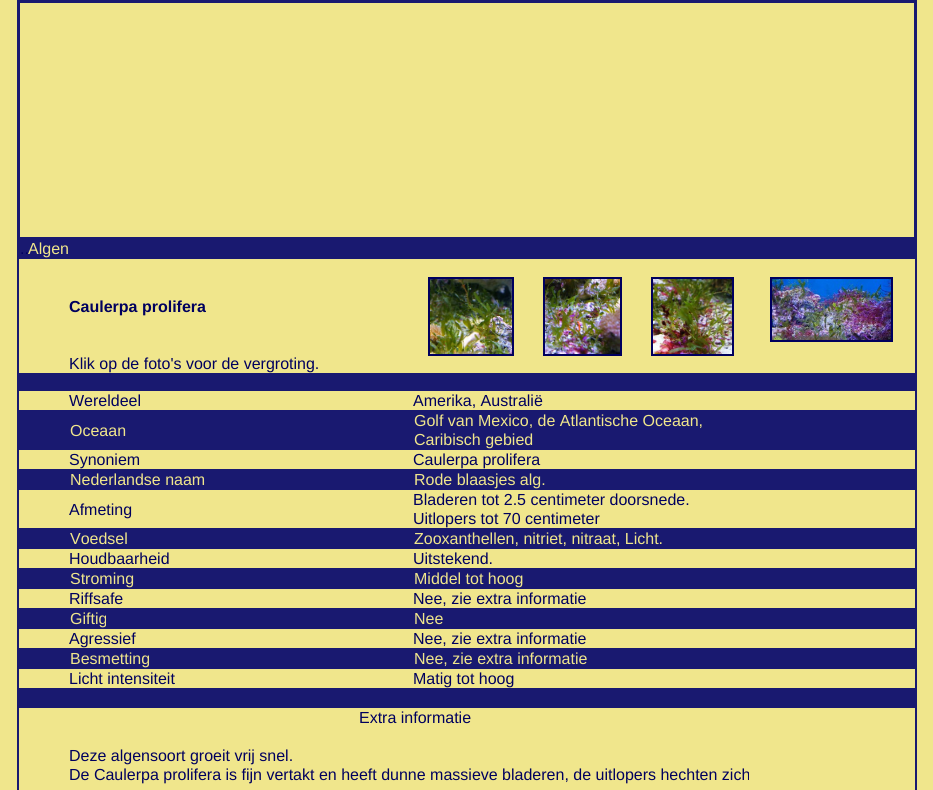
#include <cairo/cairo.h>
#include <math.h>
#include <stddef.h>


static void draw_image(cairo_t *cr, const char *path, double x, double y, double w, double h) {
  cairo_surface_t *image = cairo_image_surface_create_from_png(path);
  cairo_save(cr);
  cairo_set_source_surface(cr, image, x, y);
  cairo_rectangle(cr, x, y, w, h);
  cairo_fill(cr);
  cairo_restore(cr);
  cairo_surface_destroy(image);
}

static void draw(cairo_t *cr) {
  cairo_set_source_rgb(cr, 240 / 255.0, 230 / 255.0, 140 / 255.0);
  cairo_paint(cr);
  cairo_rectangle(cr, 18, 1, 898, 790);
  cairo_set_source_rgb(cr, 25 / 255.0, 25 / 255.0, 112 / 255.0);
  cairo_stroke(cr);
  cairo_rectangle(cr, 19.5, 2.5, 895, 235);
  cairo_set_line_width(cr, 1);
  cairo_stroke(cr);
  cairo_rectangle(cr, 19, 238, 896, 21);
  cairo_fill(cr);
  cairo_rectangle(cr, 429, 278, 84, 77);
  cairo_set_source_rgb(cr, 0, 0, 94 / 255.0);
  cairo_set_line_width(cr, 2);
  cairo_stroke(cr);
  draw_image(cr, "images/1.png", 430, 279, 82, 75);
  cairo_rectangle(cr, 544, 278, 77, 77);
  cairo_stroke(cr);
  draw_image(cr, "images/2.png", 545, 279, 75, 75);
  cairo_rectangle(cr, 652, 278, 81, 77);
  cairo_stroke(cr);
  draw_image(cr, "images/3.png", 653, 279, 79, 75);
  cairo_rectangle(cr, 771, 278, 121, 63);
  cairo_stroke(cr);
  draw_image(cr, "images/4.png", 772, 279, 119, 61);
  cairo_set_source_rgb(cr, 25 / 255.0, 25 / 255.0, 112 / 255.0);
  cairo_rectangle(cr, 19, 373, 896, 18);
  cairo_fill(cr);
  cairo_rectangle(cr, 19, 410, 896, 40);
  cairo_fill(cr);
  cairo_rectangle(cr, 19, 469, 896, 21);
  cairo_fill(cr);
  cairo_rectangle(cr, 19, 528, 896, 21);
  cairo_fill(cr);
  cairo_rectangle(cr, 19, 568, 896, 21);
  cairo_fill(cr);
  cairo_rectangle(cr, 19, 608, 896, 21);
  cairo_fill(cr);
  cairo_rectangle(cr, 19, 648, 896, 21);
  cairo_fill(cr);
  cairo_rectangle(cr, 19, 688, 896, 20);
  cairo_fill(cr);
  cairo_select_font_face(cr, "Liberation Sans", CAIRO_FONT_SLANT_NORMAL, CAIRO_FONT_WEIGHT_NORMAL);
  cairo_set_font_size(cr, 16);
  cairo_set_source_rgb(cr, 0, 0, 94 / 255.0);
  cairo_move_to(cr, 20, 254);
  cairo_show_text(cr, "..");
  cairo_set_source_rgb(cr, 240 / 255.0, 230 / 255.0, 140 / 255.0);
  cairo_move_to(cr, 28, 254);
  cairo_show_text(cr, "Algen");
  cairo_select_font_face(cr, "Liberation Sans", CAIRO_FONT_SLANT_NORMAL, CAIRO_FONT_WEIGHT_BOLD);
  cairo_set_source_rgb(cr, 0, 0, 94 / 255.0);
  cairo_move_to(cr, 69, 312);
  cairo_show_text(cr, "Caulerpa prolifera");
  cairo_select_font_face(cr, "Liberation Sans", CAIRO_FONT_SLANT_NORMAL, CAIRO_FONT_WEIGHT_NORMAL);
  cairo_move_to(cr, 69, 369);
  cairo_show_text(cr, "Klik op de foto's voor de vergroting.");
  cairo_move_to(cr, 69, 406);
  cairo_show_text(cr, "Wereldeel");
  cairo_move_to(cr, 413, 406);
  cairo_show_text(cr, "Amerika, Australië");
  cairo_set_source_rgb(cr, 240 / 255.0, 230 / 255.0, 140 / 255.0);
  cairo_move_to(cr, 70, 436);
  cairo_show_text(cr, "Oceaan");
  cairo_move_to(cr, 414, 426);
  cairo_show_text(cr, "Golf van Mexico, de Atlantische Oceaan,");
  cairo_move_to(cr, 414, 445);
  cairo_show_text(cr, "Caribisch gebied");
  cairo_set_source_rgb(cr, 0, 0, 94 / 255.0);
  cairo_move_to(cr, 69, 465);
  cairo_show_text(cr, "Synoniem");
  cairo_move_to(cr, 413, 465);
  cairo_show_text(cr, "Caulerpa prolifera");
  cairo_set_source_rgb(cr, 240 / 255.0, 230 / 255.0, 140 / 255.0);
  cairo_move_to(cr, 70, 485);
  cairo_show_text(cr, "Nederlandse naam");
  cairo_move_to(cr, 414, 485);
  cairo_show_text(cr, "Rode blaasjes alg.");
  cairo_set_source_rgb(cr, 0, 0, 94 / 255.0);
  cairo_move_to(cr, 69, 515);
  cairo_show_text(cr, "Afmeting");
  cairo_move_to(cr, 413, 505);
  cairo_show_text(cr, "Bladeren tot 2.5 centimeter doorsnede.");
  cairo_move_to(cr, 413, 524);
  cairo_show_text(cr, "Uitlopers tot 70 centimeter");
  cairo_set_source_rgb(cr, 240 / 255.0, 230 / 255.0, 140 / 255.0);
  cairo_move_to(cr, 70, 544);
  cairo_show_text(cr, "Voedsel");
  cairo_move_to(cr, 414, 544);
  cairo_show_text(cr, "Zooxanthellen, nitriet, nitraat, Licht.");
  cairo_set_source_rgb(cr, 0, 0, 94 / 255.0);
  cairo_move_to(cr, 69, 564);
  cairo_show_text(cr, "Houdbaarheid");
  cairo_move_to(cr, 413, 564);
  cairo_show_text(cr, "Uitstekend.");
  cairo_set_source_rgb(cr, 240 / 255.0, 230 / 255.0, 140 / 255.0);
  cairo_move_to(cr, 70, 584);
  cairo_show_text(cr, "Stroming");
  cairo_move_to(cr, 414, 584);
  cairo_show_text(cr, "Middel tot hoog");
  cairo_set_source_rgb(cr, 0, 0, 94 / 255.0);
  cairo_move_to(cr, 69, 604);
  cairo_show_text(cr, "Riffsafe");
  cairo_move_to(cr, 413, 604);
  cairo_show_text(cr, "Nee, zie extra informatie");
  cairo_set_source_rgb(cr, 240 / 255.0, 230 / 255.0, 140 / 255.0);
  cairo_move_to(cr, 70, 624);
  cairo_show_text(cr, "Giftig");
  cairo_move_to(cr, 414, 624);
  cairo_show_text(cr, "Nee");
  cairo_set_source_rgb(cr, 0, 0, 94 / 255.0);
  cairo_move_to(cr, 69, 644);
  cairo_show_text(cr, "Agressief");
  cairo_move_to(cr, 413, 644);
  cairo_show_text(cr, "Nee, zie extra informatie");
  cairo_set_source_rgb(cr, 240 / 255.0, 230 / 255.0, 140 / 255.0);
  cairo_move_to(cr, 70, 664);
  cairo_show_text(cr, "Besmetting");
  cairo_move_to(cr, 414, 664);
  cairo_show_text(cr, "Nee, zie extra informatie");
  cairo_set_source_rgb(cr, 0, 0, 94 / 255.0);
  cairo_move_to(cr, 69, 684);
  cairo_show_text(cr, "Licht intensiteit");
  cairo_move_to(cr, 413, 684);
  cairo_show_text(cr, "Matig tot hoog");
  cairo_move_to(cr, 359, 723);
  cairo_show_text(cr, "Extra informatie");
  cairo_move_to(cr, 69, 761);
  cairo_show_text(cr, "Deze algensoort groeit vrij snel.");
  cairo_move_to(cr, 69, 780);
  cairo_show_text(cr, "De Caulerpa prolifera is fijn vertakt en heeft dunne massieve bladeren, de uitlopers hechten zich");
}

int main(void) {
  cairo_surface_t *surface = cairo_image_surface_create(CAIRO_FORMAT_RGB24, 933, 790);
  cairo_t *cr = cairo_create(surface);
  cairo_font_options_t *options = cairo_font_options_create();
  cairo_font_options_set_hint_metrics(options, CAIRO_HINT_METRICS_OFF);
  cairo_font_options_set_hint_style(options, CAIRO_HINT_STYLE_NONE);
  cairo_set_font_options(cr, options);
  cairo_set_miter_limit(cr, 4);
  draw(cr);
  cairo_surface_write_to_png(surface, "out.png");
  cairo_font_options_destroy(options);
  cairo_destroy(cr);
  cairo_surface_destroy(surface);
  return 0;
}
